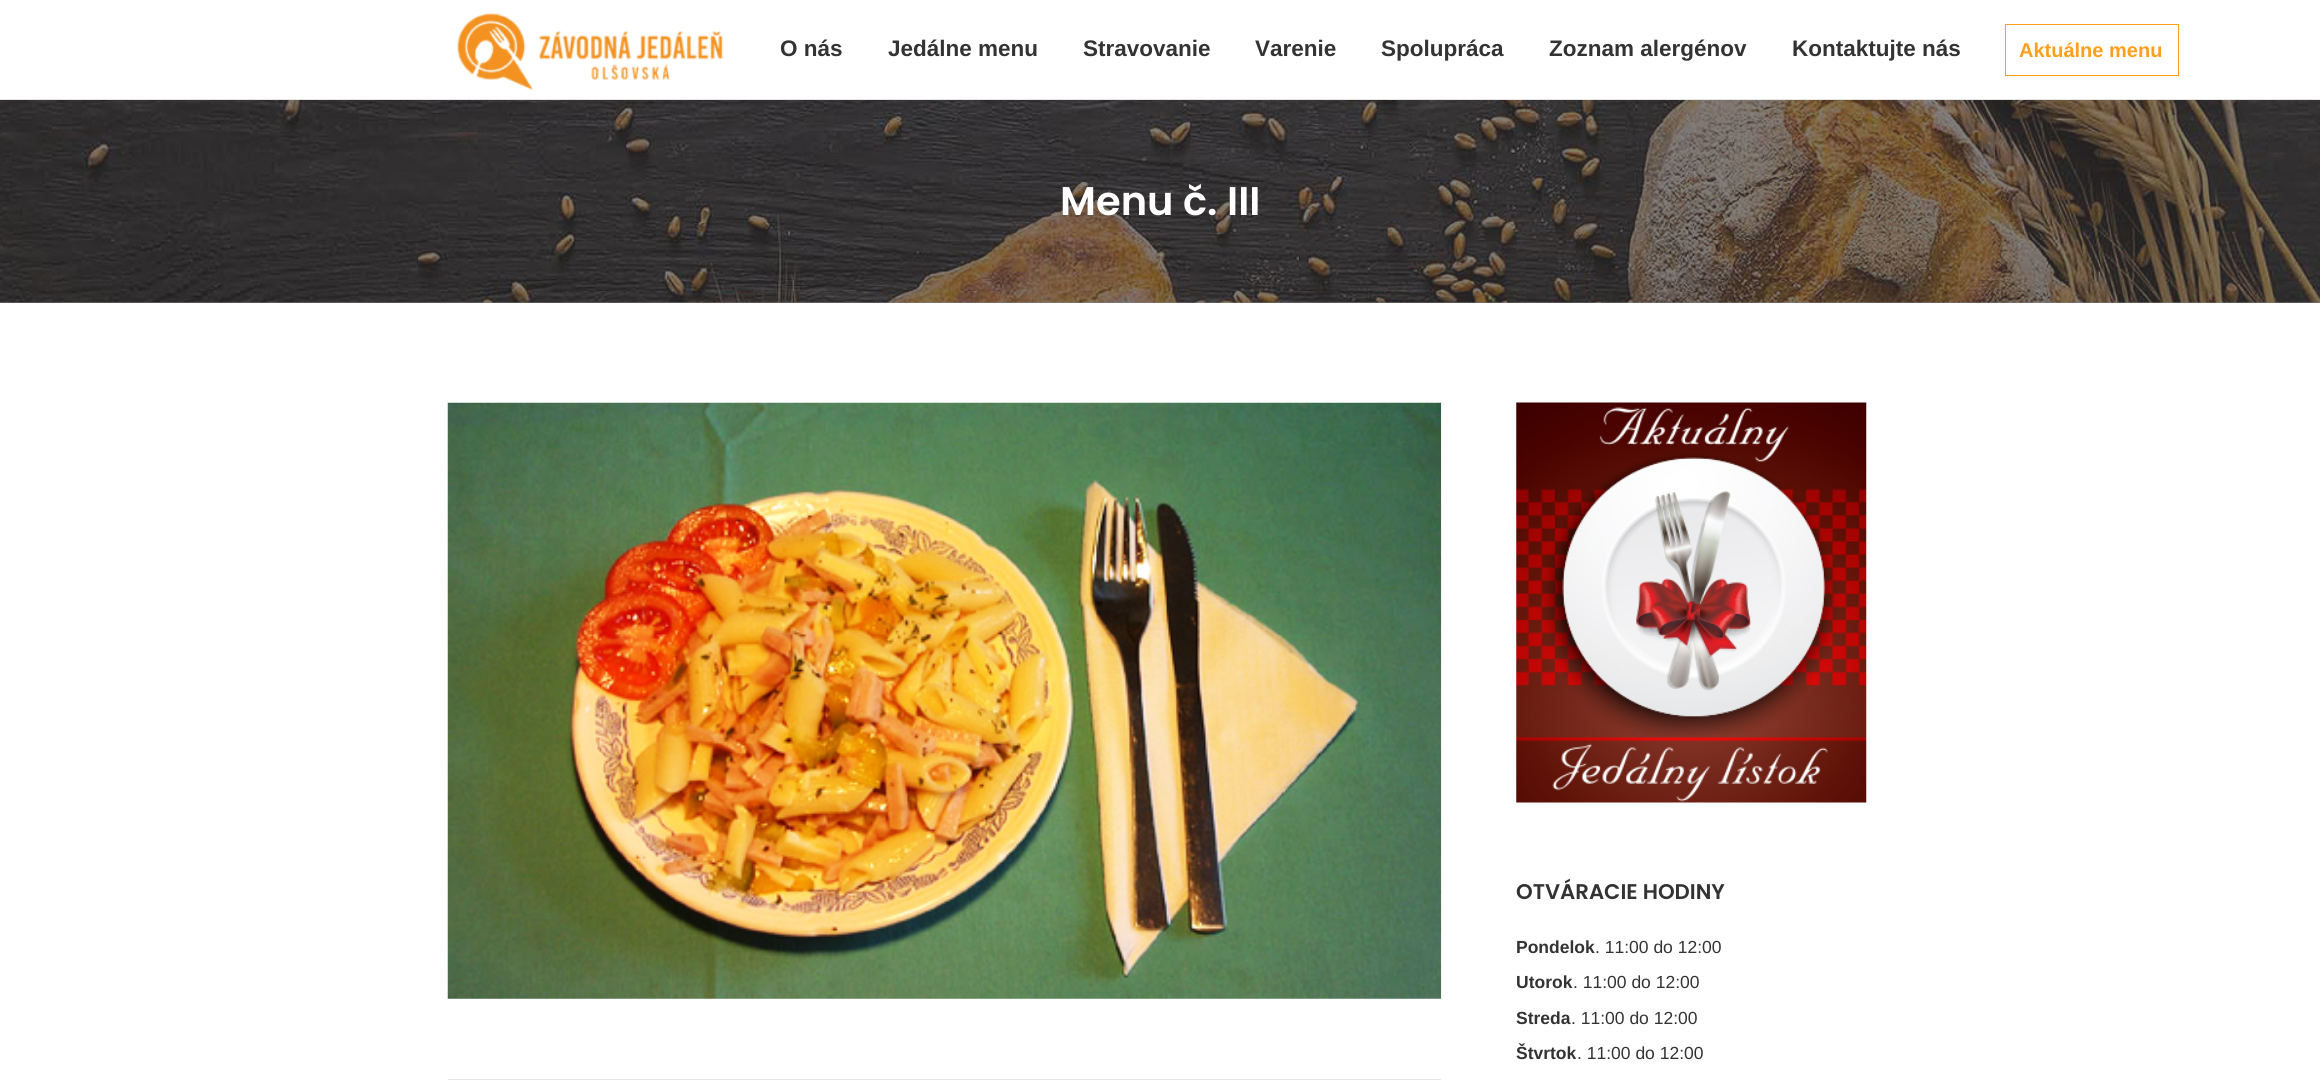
#include <cairo/cairo.h>
#include <math.h>
#include <stddef.h>


static void draw_image(cairo_t *cr, const char *path, double x, double y, double w, double h) {
  cairo_surface_t *image = cairo_image_surface_create_from_png(path);
  cairo_save(cr);
  cairo_set_source_surface(cr, image, x, y);
  cairo_rectangle(cr, x, y, w, h);
  cairo_fill(cr);
  cairo_restore(cr);
  cairo_surface_destroy(image);
}

static void draw(cairo_t *cr) {
  cairo_set_source_rgb(cr, 1, 1, 1);
  cairo_paint(cr);
  cairo_set_source_rgb(cr, 230 / 255.0, 230 / 255.0, 230 / 255.0);
  cairo_rectangle(cr, 0, 99, 2320, 1);
  cairo_fill(cr);
  draw_image(cr, "images/1.png", 457, 13, 267, 78);
  cairo_rectangle(cr, 2005.5, 24.5, 173, 51);
  cairo_set_source_rgb(cr, 1, 159 / 255.0, 28 / 255.0);
  cairo_set_line_width(cr, 1);
  cairo_stroke(cr);
  cairo_set_source_rgb(cr, 128 / 255.0, 128 / 255.0, 128 / 255.0);
  cairo_rectangle(cr, 0, 302, 2320, 1);
  cairo_fill(cr);
  draw_image(cr, "images/2.png", 0, 100, 2320, 203);
  draw_image(cr, "images/3.png", 447, 402, 995, 597);
  cairo_set_source_rgb(cr, 230 / 255.0, 230 / 255.0, 230 / 255.0);
  cairo_rectangle(cr, 448, 1079, 993, 1);
  cairo_fill(cr);
  draw_image(cr, "images/4.png", 1516, 402, 351, 401);
  cairo_select_font_face(cr, "Liberation Sans", CAIRO_FONT_SLANT_NORMAL, CAIRO_FONT_WEIGHT_BOLD);
  cairo_set_font_size(cr, 22.5);
  cairo_set_source_rgb(cr, 51 / 255.0, 51 / 255.0, 51 / 255.0);
  cairo_move_to(cr, 780, 56);
  cairo_show_text(cr, "O nás");
  cairo_move_to(cr, 888, 56);
  cairo_show_text(cr, "Jedálne menu");
  cairo_move_to(cr, 1083, 56);
  cairo_show_text(cr, "Stravovanie");
  cairo_move_to(cr, 1255, 56);
  cairo_show_text(cr, "Varenie");
  cairo_move_to(cr, 1381, 56);
  cairo_show_text(cr, "Spolupráca");
  cairo_move_to(cr, 1549, 56);
  cairo_show_text(cr, "Zoznam alergénov");
  cairo_move_to(cr, 1792, 56);
  cairo_show_text(cr, "Kontaktujte nás");
  cairo_set_font_size(cr, 20);
  cairo_set_source_rgb(cr, 1, 159 / 255.0, 28 / 255.0);
  cairo_move_to(cr, 2019, 57);
  cairo_show_text(cr, "Aktuálne menu");
  cairo_select_font_face(cr, "Poppins SemiBold", CAIRO_FONT_SLANT_NORMAL, CAIRO_FONT_WEIGHT_NORMAL);
  cairo_set_font_size(cr, 40);
  cairo_set_source_rgb(cr, 1, 1, 1);
  cairo_move_to(cr, 1060, 215);
  cairo_show_text(cr, "Menu č. III");
  cairo_set_font_size(cr, 21.25);
  cairo_set_source_rgb(cr, 51 / 255.0, 51 / 255.0, 51 / 255.0);
  cairo_move_to(cr, 1516, 899);
  cairo_show_text(cr, "OTVÁRACIE HODINY");
  cairo_select_font_face(cr, "Liberation Sans", CAIRO_FONT_SLANT_NORMAL, CAIRO_FONT_WEIGHT_BOLD);
  cairo_set_font_size(cr, 17.5);
  cairo_move_to(cr, 1516, 953);
  cairo_show_text(cr, "Pondelok");
  cairo_select_font_face(cr, "Liberation Sans", CAIRO_FONT_SLANT_NORMAL, CAIRO_FONT_WEIGHT_NORMAL);
  cairo_move_to(cr, 1595, 953);
  cairo_show_text(cr, ". 11:00 do 12:00");
  cairo_select_font_face(cr, "Liberation Sans", CAIRO_FONT_SLANT_NORMAL, CAIRO_FONT_WEIGHT_BOLD);
  cairo_move_to(cr, 1516, 988);
  cairo_show_text(cr, "Utorok");
  cairo_select_font_face(cr, "Liberation Sans", CAIRO_FONT_SLANT_NORMAL, CAIRO_FONT_WEIGHT_NORMAL);
  cairo_move_to(cr, 1573, 988);
  cairo_show_text(cr, ". 11:00 do 12:00");
  cairo_select_font_face(cr, "Liberation Sans", CAIRO_FONT_SLANT_NORMAL, CAIRO_FONT_WEIGHT_BOLD);
  cairo_move_to(cr, 1516, 1024);
  cairo_show_text(cr, "Streda");
  cairo_select_font_face(cr, "Liberation Sans", CAIRO_FONT_SLANT_NORMAL, CAIRO_FONT_WEIGHT_NORMAL);
  cairo_move_to(cr, 1571, 1024);
  cairo_show_text(cr, ". 11:00 do 12:00");
  cairo_select_font_face(cr, "Liberation Sans", CAIRO_FONT_SLANT_NORMAL, CAIRO_FONT_WEIGHT_BOLD);
  cairo_move_to(cr, 1516, 1059);
  cairo_show_text(cr, "Štvrtok");
  cairo_select_font_face(cr, "Liberation Sans", CAIRO_FONT_SLANT_NORMAL, CAIRO_FONT_WEIGHT_NORMAL);
  cairo_move_to(cr, 1577, 1059);
  cairo_show_text(cr, ". 11:00 do 12:00");
}

int main(void) {
  cairo_surface_t *surface = cairo_image_surface_create(CAIRO_FORMAT_RGB24, 2320, 1088);
  cairo_t *cr = cairo_create(surface);
  cairo_font_options_t *options = cairo_font_options_create();
  cairo_font_options_set_hint_metrics(options, CAIRO_HINT_METRICS_OFF);
  cairo_font_options_set_hint_style(options, CAIRO_HINT_STYLE_NONE);
  cairo_set_font_options(cr, options);
  cairo_set_miter_limit(cr, 4);
  draw(cr);
  cairo_surface_write_to_png(surface, "out.png");
  cairo_font_options_destroy(options);
  cairo_destroy(cr);
  cairo_surface_destroy(surface);
  return 0;
}
